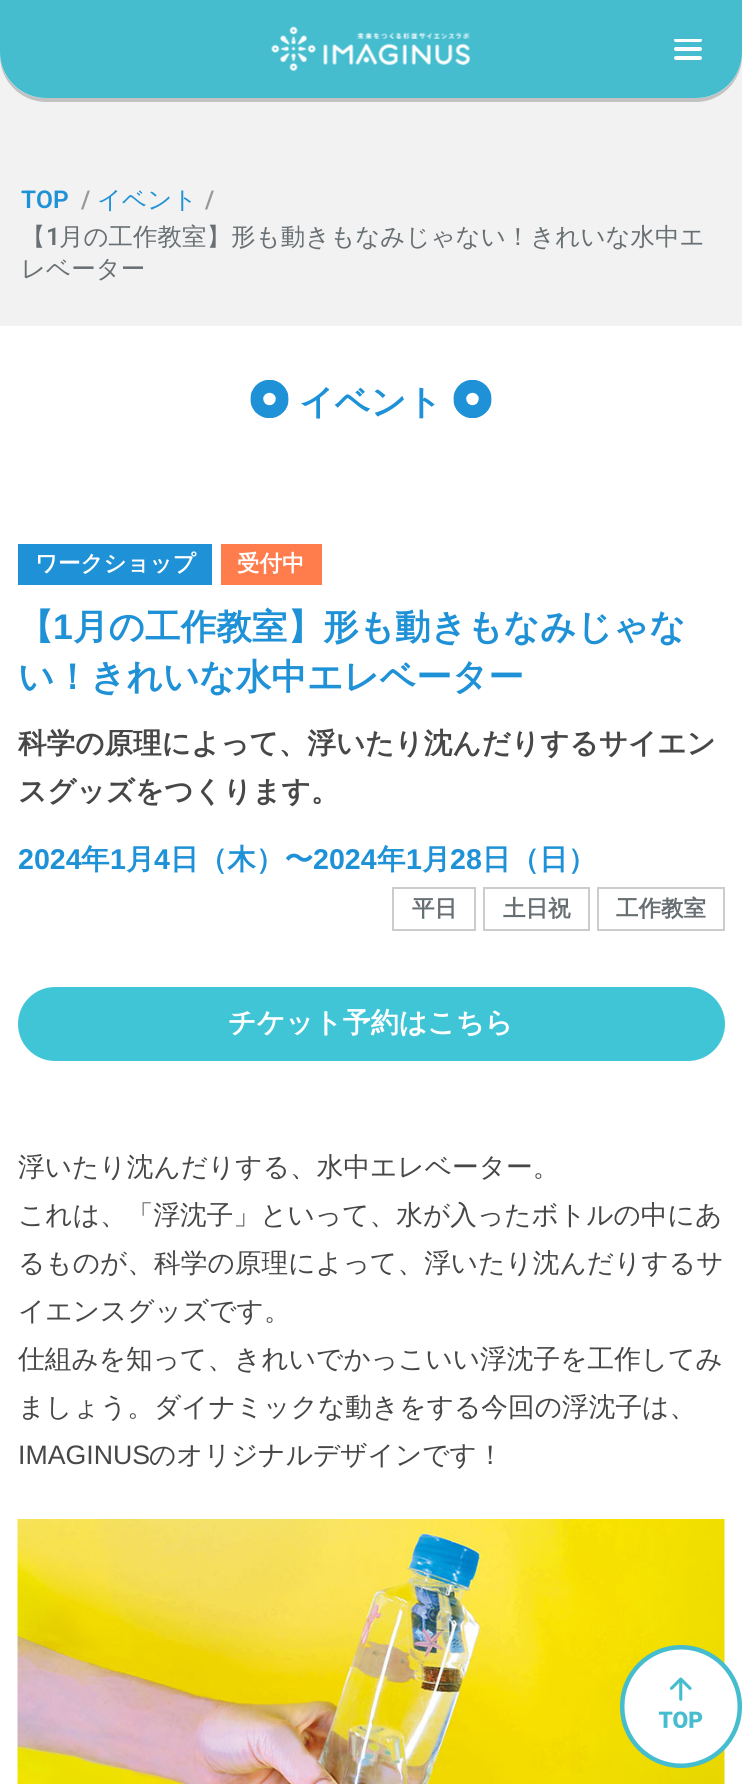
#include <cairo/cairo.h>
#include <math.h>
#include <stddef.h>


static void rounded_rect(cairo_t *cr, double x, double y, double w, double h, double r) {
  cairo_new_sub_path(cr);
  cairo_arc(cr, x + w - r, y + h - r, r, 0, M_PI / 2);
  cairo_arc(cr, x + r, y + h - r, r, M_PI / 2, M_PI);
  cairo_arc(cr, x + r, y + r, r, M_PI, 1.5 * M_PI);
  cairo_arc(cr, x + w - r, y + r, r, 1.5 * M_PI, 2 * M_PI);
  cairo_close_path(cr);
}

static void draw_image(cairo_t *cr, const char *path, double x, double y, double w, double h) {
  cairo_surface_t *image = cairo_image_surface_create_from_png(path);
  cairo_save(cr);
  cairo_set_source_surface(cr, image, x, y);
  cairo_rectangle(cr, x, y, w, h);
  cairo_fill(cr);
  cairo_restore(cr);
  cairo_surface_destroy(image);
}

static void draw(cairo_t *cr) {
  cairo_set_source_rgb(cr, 1, 1, 1);
  cairo_paint(cr);
  cairo_set_source_rgb(cr, 242 / 255.0, 242 / 255.0, 242 / 255.0);
  cairo_rectangle(cr, 0, 52, 742, 274);
  cairo_fill(cr);
  cairo_set_source_rgb(cr, 194 / 255.0, 194 / 255.0, 194 / 255.0);
  cairo_new_path(cr);
  cairo_move_to(cr, 0, 52);
  cairo_line_to(cr, 0, 56);
  cairo_curve_to(cr, 0, 81, 21, 102, 46, 102);
  cairo_line_to(cr, 696, 102);
  cairo_curve_to(cr, 721, 102, 742, 81, 742, 56);
  cairo_line_to(cr, 742, 52);
  cairo_curve_to(cr, 742, 78, 722, 98, 696, 98);
  cairo_line_to(cr, 46, 98);
  cairo_curve_to(cr, 20, 98, 0, 78, 0, 52);
  cairo_close_path(cr);
  cairo_fill(cr);
  cairo_set_source_rgb(cr, 69 / 255.0, 189 / 255.0, 207 / 255.0);
  cairo_new_path(cr);
  cairo_move_to(cr, 0, 0);
  cairo_line_to(cr, 742, 0);
  cairo_line_to(cr, 742, 52);
  cairo_curve_to(cr, 742, 77.5, 721.5, 98, 696, 98);
  cairo_line_to(cr, 46, 98);
  cairo_curve_to(cr, 20.5, 98, 0, 77.5, 0, 52);
  cairo_close_path(cr);
  cairo_fill(cr);
  draw_image(cr, "images/1.png", 271, 26, 200, 45);
  cairo_save(cr);
  cairo_rectangle(cr, 674, 39, 28, 21);
  cairo_clip(cr);
  cairo_set_source_rgb(cr, 1, 1, 1);
  rounded_rect(cr, 674, 38, 28, 4, 2);
  cairo_fill(cr);
  cairo_restore(cr);
  cairo_set_source_rgb(cr, 1, 1, 1);
  rounded_rect(cr, 674, 47, 28, 4, 2);
  cairo_fill(cr);
  rounded_rect(cr, 674, 56, 28, 4, 2);
  cairo_fill(cr);
  draw_image(cr, "images/2.png", 250, 380, 39, 38);
  draw_image(cr, "images/3.png", 453, 380, 39, 38);
  cairo_set_source_rgb(cr, 31 / 255.0, 145 / 255.0, 215 / 255.0);
  cairo_rectangle(cr, 18, 544, 194, 41);
  cairo_fill(cr);
  cairo_set_source_rgb(cr, 1, 124 / 255.0, 77 / 255.0);
  cairo_rectangle(cr, 221, 544, 101, 41);
  cairo_fill(cr);
  cairo_rectangle(cr, 393, 888, 82, 42);
  cairo_set_source_rgb(cr, 204 / 255.0, 204 / 255.0, 204 / 255.0);
  cairo_stroke(cr);
  cairo_rectangle(cr, 484, 888, 105, 42);
  cairo_stroke(cr);
  cairo_rectangle(cr, 598, 888, 126, 42);
  cairo_stroke(cr);
  cairo_set_source_rgb(cr, 64 / 255.0, 197 / 255.0, 215 / 255.0);
  rounded_rect(cr, 18, 987, 707, 74, 37);
  cairo_fill(cr);
  draw_image(cr, "images/4.png", 17, 1519, 708, 265);
  draw_image(cr, "images/5.png", 620, 1645, 122, 123);
  cairo_select_font_face(cr, "Roboto SemiBold", CAIRO_FONT_SLANT_NORMAL, CAIRO_FONT_WEIGHT_NORMAL);
  cairo_set_font_size(cr, 24.5);
  cairo_set_source_rgb(cr, 31 / 255.0, 145 / 255.0, 215 / 255.0);
  cairo_move_to(cr, 21, 208);
  cairo_show_text(cr, "TOP");
  cairo_set_source_rgb(cr, 153 / 255.0, 153 / 255.0, 153 / 255.0);
  cairo_move_to(cr, 81, 208);
  cairo_show_text(cr, "/");
  cairo_select_font_face(cr, "WenQuanYi Zen Hei Medium", CAIRO_FONT_SLANT_NORMAL, CAIRO_FONT_WEIGHT_NORMAL);
  cairo_set_source_rgb(cr, 31 / 255.0, 145 / 255.0, 215 / 255.0);
  cairo_move_to(cr, 97, 208);
  cairo_show_text(cr, "イベント");
  cairo_select_font_face(cr, "Roboto SemiBold", CAIRO_FONT_SLANT_NORMAL, CAIRO_FONT_WEIGHT_NORMAL);
  cairo_set_source_rgb(cr, 153 / 255.0, 153 / 255.0, 153 / 255.0);
  cairo_move_to(cr, 205, 208);
  cairo_show_text(cr, "/");
  cairo_select_font_face(cr, "WenQuanYi Zen Hei Medium", CAIRO_FONT_SLANT_NORMAL, CAIRO_FONT_WEIGHT_NORMAL);
  cairo_set_source_rgb(cr, 104 / 255.0, 111 / 255.0, 115 / 255.0);
  cairo_move_to(cr, 21, 245);
  cairo_show_text(cr, "【");
  cairo_select_font_face(cr, "Roboto SemiBold", CAIRO_FONT_SLANT_NORMAL, CAIRO_FONT_WEIGHT_NORMAL);
  cairo_move_to(cr, 46, 245);
  cairo_show_text(cr, "1");
  cairo_select_font_face(cr, "WenQuanYi Zen Hei Medium", CAIRO_FONT_SLANT_NORMAL, CAIRO_FONT_WEIGHT_NORMAL);
  cairo_move_to(cr, 59, 245);
  cairo_show_text(cr, "月の工作教室】形も動きもなみじゃない！きれいな水中エ");
  cairo_move_to(cr, 21, 277);
  cairo_show_text(cr, "レベーター");
  cairo_select_font_face(cr, "WenQuanYi Zen Hei", CAIRO_FONT_SLANT_NORMAL, CAIRO_FONT_WEIGHT_BOLD);
  cairo_set_font_size(cr, 35);
  cairo_set_source_rgb(cr, 31 / 255.0, 145 / 255.0, 215 / 255.0);
  cairo_move_to(cr, 299, 414);
  cairo_show_text(cr, "イベント");
  cairo_set_font_size(cr, 22.5);
  cairo_set_source_rgb(cr, 1, 1, 1);
  cairo_move_to(cr, 35, 571);
  cairo_show_text(cr, "ワークショップ");
  cairo_move_to(cr, 237, 571);
  cairo_show_text(cr, "受付中");
  cairo_set_font_size(cr, 35.6);
  cairo_set_source_rgb(cr, 31 / 255.0, 145 / 255.0, 215 / 255.0);
  cairo_move_to(cr, 18, 639);
  cairo_show_text(cr, "【");
  cairo_select_font_face(cr, "Liberation Sans", CAIRO_FONT_SLANT_NORMAL, CAIRO_FONT_WEIGHT_BOLD);
  cairo_move_to(cr, 53, 639);
  cairo_show_text(cr, "1");
  cairo_select_font_face(cr, "WenQuanYi Zen Hei", CAIRO_FONT_SLANT_NORMAL, CAIRO_FONT_WEIGHT_BOLD);
  cairo_move_to(cr, 73, 639);
  cairo_show_text(cr, "月の工作教室】形も動きもなみじゃな");
  cairo_move_to(cr, 18, 689);
  cairo_show_text(cr, "い！きれいな水中エレベーター");
  cairo_set_font_size(cr, 28.6);
  cairo_set_source_rgb(cr, 71 / 255.0, 71 / 255.0, 71 / 255.0);
  cairo_move_to(cr, 18, 753);
  cairo_show_text(cr, "科学の原理によって、浮いたり沈んだりするサイエン");
  cairo_move_to(cr, 18, 801);
  cairo_show_text(cr, "スグッズをつくります。");
  cairo_select_font_face(cr, "Liberation Sans", CAIRO_FONT_SLANT_NORMAL, CAIRO_FONT_WEIGHT_BOLD);
  cairo_set_source_rgb(cr, 31 / 255.0, 145 / 255.0, 215 / 255.0);
  cairo_move_to(cr, 18, 869);
  cairo_show_text(cr, "2024");
  cairo_select_font_face(cr, "WenQuanYi Zen Hei", CAIRO_FONT_SLANT_NORMAL, CAIRO_FONT_WEIGHT_BOLD);
  cairo_move_to(cr, 81, 869);
  cairo_show_text(cr, "年");
  cairo_select_font_face(cr, "Liberation Sans", CAIRO_FONT_SLANT_NORMAL, CAIRO_FONT_WEIGHT_BOLD);
  cairo_move_to(cr, 110, 869);
  cairo_show_text(cr, "1");
  cairo_select_font_face(cr, "WenQuanYi Zen Hei", CAIRO_FONT_SLANT_NORMAL, CAIRO_FONT_WEIGHT_BOLD);
  cairo_move_to(cr, 126, 869);
  cairo_show_text(cr, "月");
  cairo_select_font_face(cr, "Liberation Sans", CAIRO_FONT_SLANT_NORMAL, CAIRO_FONT_WEIGHT_BOLD);
  cairo_move_to(cr, 154, 869);
  cairo_show_text(cr, "4");
  cairo_select_font_face(cr, "WenQuanYi Zen Hei", CAIRO_FONT_SLANT_NORMAL, CAIRO_FONT_WEIGHT_BOLD);
  cairo_move_to(cr, 170, 869);
  cairo_show_text(cr, "日（木）〜");
  cairo_select_font_face(cr, "Liberation Sans", CAIRO_FONT_SLANT_NORMAL, CAIRO_FONT_WEIGHT_BOLD);
  cairo_move_to(cr, 313, 869);
  cairo_show_text(cr, "2024");
  cairo_select_font_face(cr, "WenQuanYi Zen Hei", CAIRO_FONT_SLANT_NORMAL, CAIRO_FONT_WEIGHT_BOLD);
  cairo_move_to(cr, 377, 869);
  cairo_show_text(cr, "年");
  cairo_select_font_face(cr, "Liberation Sans", CAIRO_FONT_SLANT_NORMAL, CAIRO_FONT_WEIGHT_BOLD);
  cairo_move_to(cr, 406, 869);
  cairo_show_text(cr, "1");
  cairo_select_font_face(cr, "WenQuanYi Zen Hei", CAIRO_FONT_SLANT_NORMAL, CAIRO_FONT_WEIGHT_BOLD);
  cairo_move_to(cr, 422, 869);
  cairo_show_text(cr, "月");
  cairo_select_font_face(cr, "Liberation Sans", CAIRO_FONT_SLANT_NORMAL, CAIRO_FONT_WEIGHT_BOLD);
  cairo_move_to(cr, 450, 869);
  cairo_show_text(cr, "28");
  cairo_select_font_face(cr, "WenQuanYi Zen Hei", CAIRO_FONT_SLANT_NORMAL, CAIRO_FONT_WEIGHT_BOLD);
  cairo_move_to(cr, 482, 869);
  cairo_show_text(cr, "日（日）");
  cairo_set_font_size(cr, 22.5);
  cairo_set_source_rgb(cr, 104 / 255.0, 111 / 255.0, 115 / 255.0);
  cairo_move_to(cr, 412, 916);
  cairo_show_text(cr, "平日");
  cairo_move_to(cr, 503, 916);
  cairo_show_text(cr, "土日祝");
  cairo_move_to(cr, 616, 916);
  cairo_show_text(cr, "工作教室");
  cairo_set_font_size(cr, 28);
  cairo_set_source_rgb(cr, 1, 1, 1);
  cairo_move_to(cr, 228, 1032);
  cairo_show_text(cr, "チケット予約はこちら");
  cairo_select_font_face(cr, "WenQuanYi Zen Hei Medium", CAIRO_FONT_SLANT_NORMAL, CAIRO_FONT_WEIGHT_NORMAL);
  cairo_set_font_size(cr, 26.7);
  cairo_set_source_rgb(cr, 71 / 255.0, 71 / 255.0, 71 / 255.0);
  cairo_move_to(cr, 18, 1176);
  cairo_show_text(cr, "浮いたり沈んだりする、水中エレベーター。");
  cairo_move_to(cr, 18, 1224);
  cairo_show_text(cr, "これは、「浮沈子」といって、水が入ったボトルの中にあ");
  cairo_move_to(cr, 18, 1272);
  cairo_show_text(cr, "るものが、科学の原理によって、浮いたり沈んだりするサ");
  cairo_move_to(cr, 18, 1320);
  cairo_show_text(cr, "イエンスグッズです。");
  cairo_move_to(cr, 18, 1368);
  cairo_show_text(cr, "仕組みを知って、きれいでかっこいい浮沈子を工作してみ");
  cairo_move_to(cr, 18, 1416);
  cairo_show_text(cr, "ましょう。ダイナミックな動きをする今回の浮沈子は、");
  cairo_select_font_face(cr, "Liberation Sans", CAIRO_FONT_SLANT_NORMAL, CAIRO_FONT_WEIGHT_NORMAL);
  cairo_move_to(cr, 18, 1464);
  cairo_show_text(cr, "IMAGINUS");
  cairo_select_font_face(cr, "WenQuanYi Zen Hei Medium", CAIRO_FONT_SLANT_NORMAL, CAIRO_FONT_WEIGHT_NORMAL);
  cairo_move_to(cr, 149, 1464);
  cairo_show_text(cr, "のオリジナルデザインです！");
}

int main(void) {
  cairo_surface_t *surface = cairo_image_surface_create(CAIRO_FORMAT_RGB24, 742, 1784);
  cairo_t *cr = cairo_create(surface);
  cairo_font_options_t *options = cairo_font_options_create();
  cairo_font_options_set_hint_metrics(options, CAIRO_HINT_METRICS_OFF);
  cairo_font_options_set_hint_style(options, CAIRO_HINT_STYLE_NONE);
  cairo_set_font_options(cr, options);
  cairo_set_miter_limit(cr, 4);
  draw(cr);
  cairo_surface_write_to_png(surface, "out.png");
  cairo_font_options_destroy(options);
  cairo_destroy(cr);
  cairo_surface_destroy(surface);
  return 0;
}
